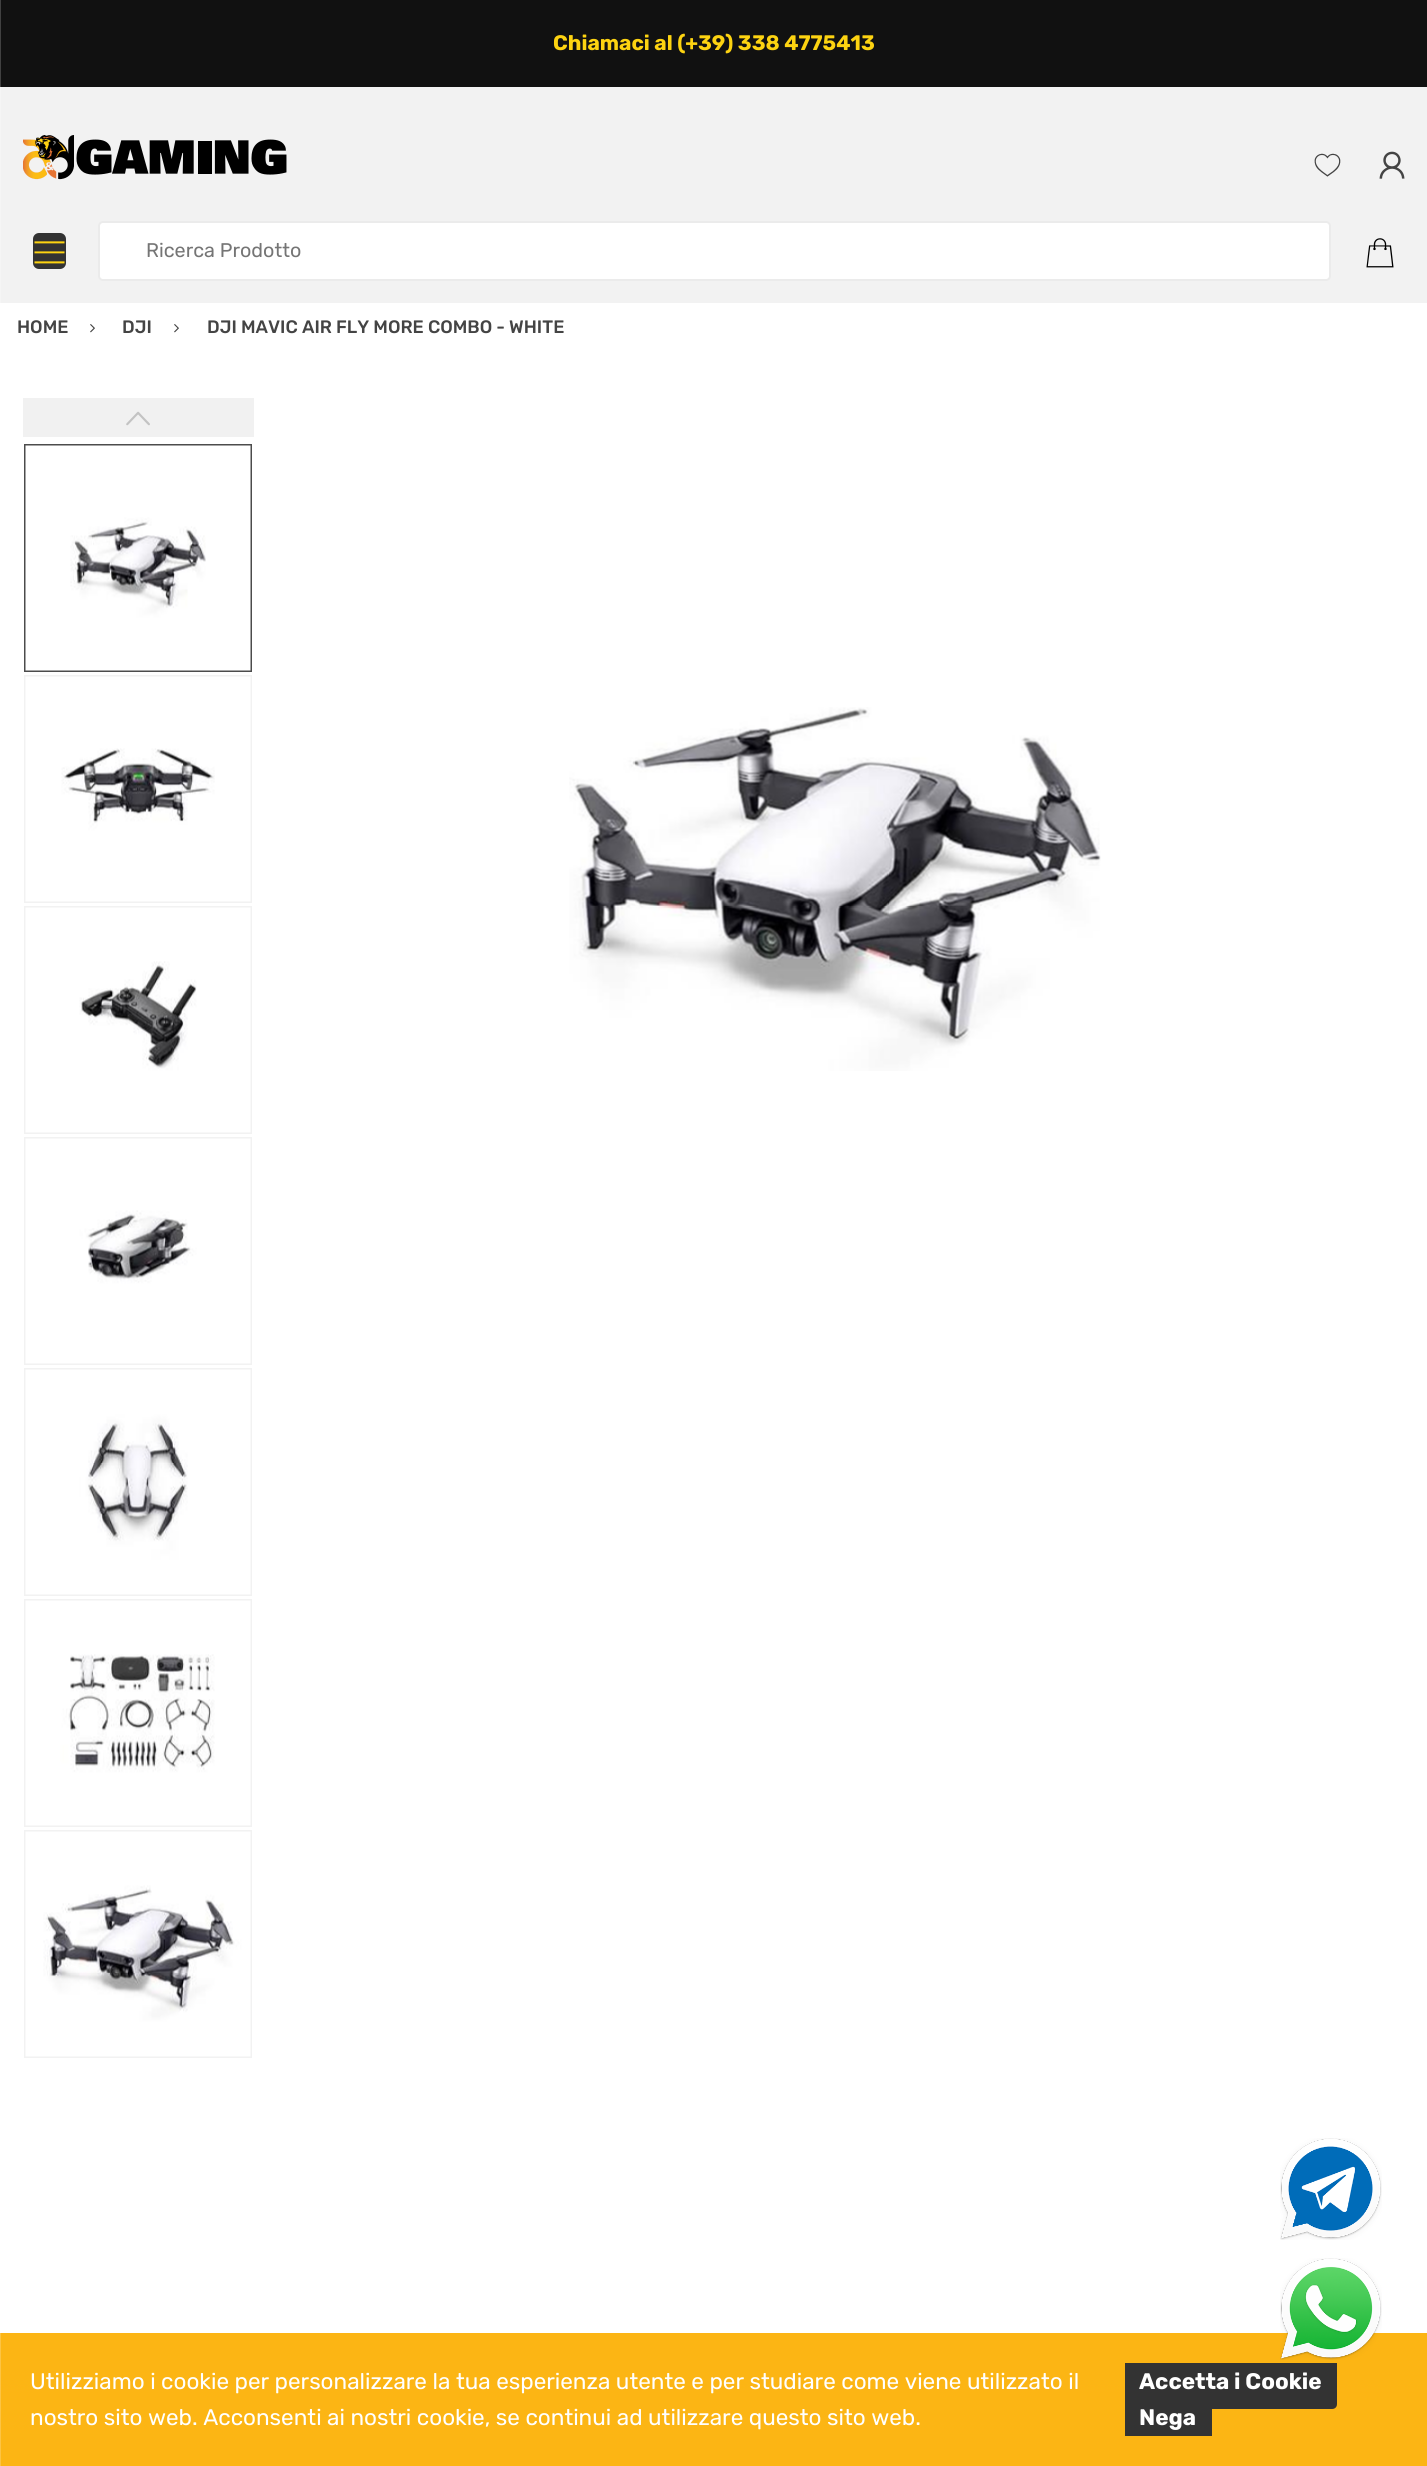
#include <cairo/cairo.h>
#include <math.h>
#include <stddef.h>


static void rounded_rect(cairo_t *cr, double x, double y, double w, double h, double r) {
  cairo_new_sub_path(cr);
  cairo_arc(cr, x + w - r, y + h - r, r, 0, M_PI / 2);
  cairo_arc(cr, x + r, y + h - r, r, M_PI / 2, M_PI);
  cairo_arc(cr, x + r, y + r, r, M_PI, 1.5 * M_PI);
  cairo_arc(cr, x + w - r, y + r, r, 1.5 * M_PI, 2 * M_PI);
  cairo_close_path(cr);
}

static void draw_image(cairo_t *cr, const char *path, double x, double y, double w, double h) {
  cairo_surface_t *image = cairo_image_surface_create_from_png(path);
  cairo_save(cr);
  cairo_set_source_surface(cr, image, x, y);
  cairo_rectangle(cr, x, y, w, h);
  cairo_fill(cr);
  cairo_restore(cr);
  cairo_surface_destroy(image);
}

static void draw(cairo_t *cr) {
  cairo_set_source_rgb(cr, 1, 1, 1);
  cairo_paint(cr);
  cairo_set_source_rgb(cr, 17 / 255.0, 17 / 255.0, 17 / 255.0);
  cairo_rectangle(cr, 1, 0, 1426, 87);
  cairo_fill(cr);
  cairo_set_source_rgb(cr, 65 / 255.0, 65 / 255.0, 65 / 255.0);
  cairo_rectangle(cr, 0, 0, 1, 87);
  cairo_fill(cr);
  cairo_set_source_rgb(cr, 242 / 255.0, 242 / 255.0, 242 / 255.0);
  cairo_rectangle(cr, 1, 87, 1426, 216);
  cairo_fill(cr);
  cairo_set_source_rgb(cr, 245 / 255.0, 245 / 255.0, 245 / 255.0);
  cairo_rectangle(cr, 0, 87, 1, 216);
  cairo_fill(cr);
  draw_image(cr, "images/1.png", 23, 135, 264, 45);
  draw_image(cr, "images/2.png", 1314, 153, 27, 24);
  draw_image(cr, "images/3.png", 1379, 151, 26, 28);
  cairo_set_source_rgb(cr, 51 / 255.0, 51 / 255.0, 51 / 255.0);
  rounded_rect(cr, 33, 233, 33, 36, 6);
  cairo_fill(cr);
  draw_image(cr, "images/4.png", 34, 241, 31, 23);
  cairo_set_source_rgb(cr, 1, 1, 1);
  rounded_rect(cr, 99, 222, 1231, 58, 4);
  cairo_fill_preserve(cr);
  cairo_set_source_rgb(cr, 235 / 255.0, 235 / 255.0, 235 / 255.0);
  cairo_stroke(cr);
  draw_image(cr, "images/5.png", 1366, 238, 28, 30);
  draw_image(cr, "images/6.png", 90, 324, 5, 9);
  draw_image(cr, "images/6.png", 174, 324, 5, 9);
  cairo_set_source_rgb(cr, 241 / 255.0, 241 / 255.0, 241 / 255.0);
  cairo_rectangle(cr, 23, 398, 231, 39);
  cairo_fill(cr);
  draw_image(cr, "images/7.png", 126, 411, 24, 15);
  cairo_rectangle(cr, 25, 445, 226, 226);
  cairo_set_source_rgb(cr, 76 / 255.0, 76 / 255.0, 76 / 255.0);
  cairo_stroke(cr);
  draw_image(cr, "images/8.png", 25, 445, 226, 226);
  cairo_rectangle(cr, 25, 676, 226, 226);
  cairo_set_source_rgb(cr, 242 / 255.0, 242 / 255.0, 242 / 255.0);
  cairo_stroke(cr);
  draw_image(cr, "images/9.png", 25, 676, 226, 226);
  cairo_rectangle(cr, 25, 907, 226, 226);
  cairo_stroke(cr);
  draw_image(cr, "images/10.png", 25, 907, 226, 226);
  cairo_rectangle(cr, 25, 1138, 226, 226);
  cairo_stroke(cr);
  draw_image(cr, "images/11.png", 25, 1138, 226, 226);
  cairo_rectangle(cr, 25, 1369, 226, 226);
  cairo_stroke(cr);
  draw_image(cr, "images/12.png", 25, 1369, 226, 226);
  cairo_rectangle(cr, 25, 1600, 226, 226);
  cairo_stroke(cr);
  draw_image(cr, "images/13.png", 25, 1600, 226, 226);
  cairo_rectangle(cr, 25, 1831, 226, 226);
  cairo_stroke(cr);
  draw_image(cr, "images/14.png", 25, 1831, 226, 226);
  draw_image(cr, "images/15.png", 569, 707, 532, 364);
  cairo_set_source_rgb(cr, 252 / 255.0, 181 / 255.0, 20 / 255.0);
  cairo_rectangle(cr, 1, 2333, 1426, 133);
  cairo_fill(cr);
  cairo_set_source_rgb(cr, 253 / 255.0, 196 / 255.0, 67 / 255.0);
  cairo_rectangle(cr, 0, 2333, 1, 133);
  cairo_fill(cr);
  cairo_set_source_rgb(cr, 51 / 255.0, 51 / 255.0, 51 / 255.0);
  cairo_new_path(cr);
  cairo_move_to(cr, 1125, 2363);
  cairo_line_to(cr, 1337, 2363);
  cairo_line_to(cr, 1337, 2404);
  cairo_curve_to(cr, 1337, 2407, 1335, 2409, 1332, 2409);
  cairo_line_to(cr, 1130, 2409);
  cairo_curve_to(cr, 1127, 2409, 1125, 2407, 1125, 2404);
  cairo_close_path(cr);
  cairo_fill(cr);
  cairo_new_path(cr);
  cairo_move_to(cr, 1130, 2390);
  cairo_line_to(cr, 1207, 2390);
  cairo_curve_to(cr, 1210, 2390, 1212, 2392, 1212, 2395);
  cairo_line_to(cr, 1212, 2436);
  cairo_line_to(cr, 1125, 2436);
  cairo_line_to(cr, 1125, 2395);
  cairo_curve_to(cr, 1125, 2392, 1127, 2390, 1130, 2390);
  cairo_close_path(cr);
  cairo_fill(cr);
  draw_image(cr, "images/16.png", 1280, 2138, 102, 102);
  draw_image(cr, "images/17.png", 1280, 2258, 102, 102);
  cairo_select_font_face(cr, "Rubik", CAIRO_FONT_SLANT_NORMAL, CAIRO_FONT_WEIGHT_BOLD);
  cairo_set_font_size(cr, 21);
  cairo_set_source_rgb(cr, 253 / 255.0, 211 / 255.0, 17 / 255.0);
  cairo_move_to(cr, 553, 50);
  cairo_show_text(cr, "Chiamaci al (+39) 338 4775413");
  cairo_select_font_face(cr, "Rubik", CAIRO_FONT_SLANT_NORMAL, CAIRO_FONT_WEIGHT_NORMAL);
  cairo_set_font_size(cr, 19.75);
  cairo_set_source_rgb(cr, 117 / 255.0, 117 / 255.0, 117 / 255.0);
  cairo_move_to(cr, 146, 257);
  cairo_show_text(cr, "Ricerca Prodotto");
  cairo_select_font_face(cr, "Rubik Medium", CAIRO_FONT_SLANT_NORMAL, CAIRO_FONT_WEIGHT_NORMAL);
  cairo_set_font_size(cr, 18);
  cairo_set_source_rgb(cr, 68 / 255.0, 68 / 255.0, 68 / 255.0);
  cairo_move_to(cr, 17, 333);
  cairo_show_text(cr, "HOME");
  cairo_move_to(cr, 122, 333);
  cairo_show_text(cr, "DJI");
  cairo_move_to(cr, 207, 333);
  cairo_show_text(cr, "DJI MAVIC AIR FLY MORE COMBO - WHITE");
  cairo_select_font_face(cr, "Rubik", CAIRO_FONT_SLANT_NORMAL, CAIRO_FONT_WEIGHT_NORMAL);
  cairo_set_font_size(cr, 22.5);
  cairo_set_source_rgb(cr, 1, 1, 1);
  cairo_move_to(cr, 30, 2389);
  cairo_show_text(cr, "Utilizziamo i cookie per personalizzare la tua esperienza utente e per studiare come viene utilizzato il");
  cairo_move_to(cr, 30, 2425);
  cairo_show_text(cr, "nostro sito web. Acconsenti ai nostri cookie, se continui ad utilizzare questo sito web.");
  cairo_select_font_face(cr, "Rubik", CAIRO_FONT_SLANT_NORMAL, CAIRO_FONT_WEIGHT_BOLD);
  cairo_move_to(cr, 1139, 2389);
  cairo_show_text(cr, "Accetta i Cookie");
  cairo_move_to(cr, 1139, 2425);
  cairo_show_text(cr, "Nega");
}

int main(void) {
  cairo_surface_t *surface = cairo_image_surface_create(CAIRO_FORMAT_RGB24, 1427, 2466);
  cairo_t *cr = cairo_create(surface);
  cairo_font_options_t *options = cairo_font_options_create();
  cairo_font_options_set_hint_metrics(options, CAIRO_HINT_METRICS_OFF);
  cairo_font_options_set_hint_style(options, CAIRO_HINT_STYLE_NONE);
  cairo_set_font_options(cr, options);
  cairo_set_miter_limit(cr, 4);
  draw(cr);
  cairo_surface_write_to_png(surface, "out.png");
  cairo_font_options_destroy(options);
  cairo_destroy(cr);
  cairo_surface_destroy(surface);
  return 0;
}
